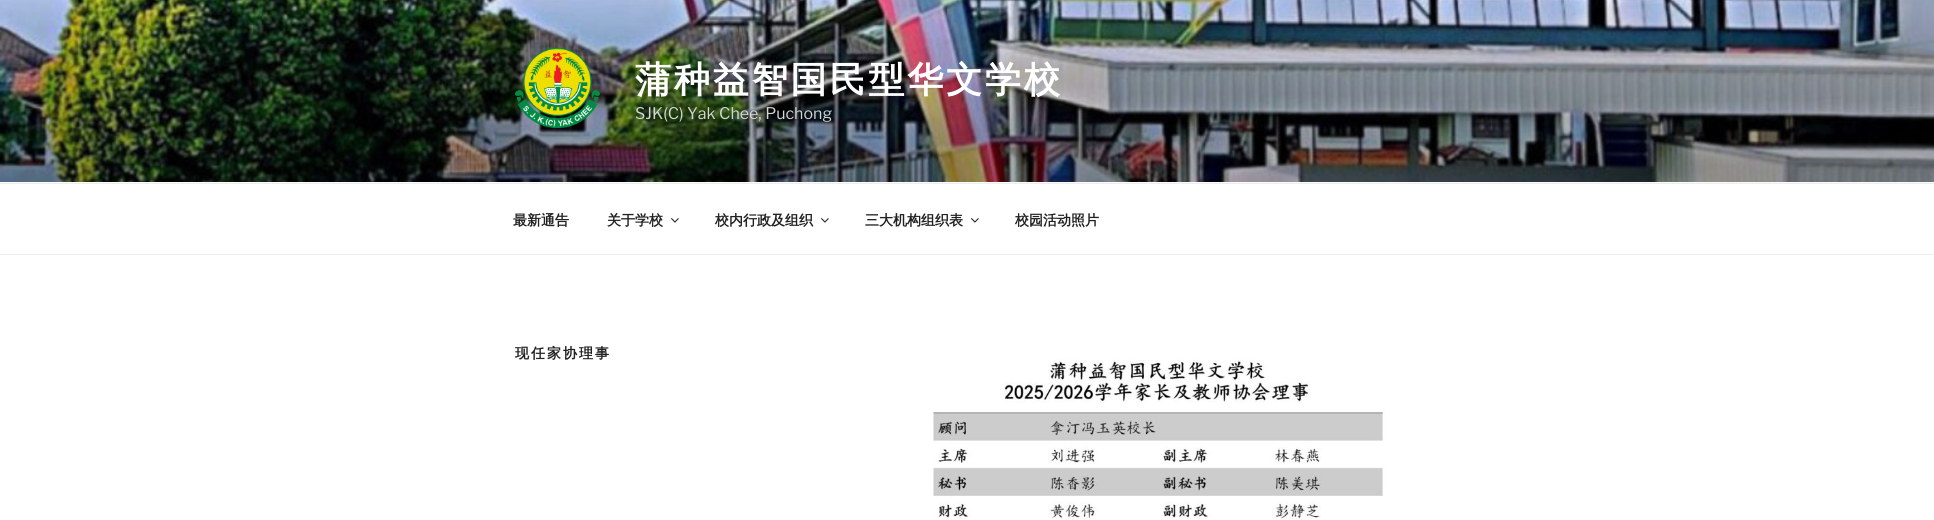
#include <cairo/cairo.h>
#include <math.h>
#include <stddef.h>


static void draw_spaced(cairo_t *cr, double x, double y, const char *s, double letter, double word) {
  cairo_move_to(cr, x, y);
  while (*s) {
    char ch[5] = {0};
    int n = 0;
    do ch[n++] = *s++; while ((*s & 0xC0) == 0x80);
    cairo_show_text(cr, ch);
    cairo_rel_move_to(cr, letter + word * (*ch == ' '), 0);
  }
}

static void draw_image(cairo_t *cr, const char *path, double x, double y, double w, double h) {
  cairo_surface_t *image = cairo_image_surface_create_from_png(path);
  cairo_save(cr);
  cairo_set_source_surface(cr, image, x, y);
  cairo_rectangle(cr, x, y, w, h);
  cairo_fill(cr);
  cairo_restore(cr);
  cairo_surface_destroy(image);
}

static void draw(cairo_t *cr) {
  cairo_set_source_rgb(cr, 1, 1, 1);
  cairo_paint(cr);
  cairo_set_source_rgb(cr, 250 / 255.0, 250 / 255.0, 250 / 255.0);
  cairo_rectangle(cr, 0, 182, 1934, 1);
  cairo_fill(cr);
  draw_image(cr, "images/1.png", 0, 0, 1934, 182);
  draw_image(cr, "images/2.png", 515, 48, 85, 80);
  cairo_set_source_rgb(cr, 238 / 255.0, 238 / 255.0, 238 / 255.0);
  cairo_rectangle(cr, 0, 183, 1934, 1);
  cairo_fill(cr);
  cairo_rectangle(cr, 0, 254, 1934, 1);
  cairo_fill(cr);
  draw_image(cr, "images/3.png", 671, 218, 8, 5);
  draw_image(cr, "images/3.png", 821, 218, 8, 5);
  draw_image(cr, "images/3.png", 971, 218, 8, 5);
  draw_image(cr, "images/4.png", 933, 359, 452, 160);
  cairo_select_font_face(cr, "WenQuanYi Zen Hei", CAIRO_FONT_SLANT_NORMAL, CAIRO_FONT_WEIGHT_BOLD);
  cairo_set_font_size(cr, 36);
  cairo_set_source_rgb(cr, 1, 1, 1);
  draw_spaced(cr, 635, 92, "蒲种益智国民型华文学校", 2.9, 0);
  cairo_select_font_face(cr, "Libre Franklin Thin", CAIRO_FONT_SLANT_NORMAL, CAIRO_FONT_WEIGHT_NORMAL);
  cairo_set_font_size(cr, 16);
  cairo_set_source_rgb(cr, 211 / 255.0, 215 / 255.0, 210 / 255.0);
  cairo_move_to(cr, 635, 119);
  cairo_show_text(cr, "SJK(C) Yak Chee, Puchong");
  cairo_select_font_face(cr, "WenQuanYi Zen Hei", CAIRO_FONT_SLANT_NORMAL, CAIRO_FONT_WEIGHT_BOLD);
  cairo_set_font_size(cr, 14);
  cairo_set_source_rgb(cr, 34 / 255.0, 34 / 255.0, 34 / 255.0);
  cairo_move_to(cr, 513, 225);
  cairo_show_text(cr, "最新通告");
  cairo_move_to(cr, 607, 225);
  cairo_show_text(cr, "关于学校");
  cairo_move_to(cr, 715, 225);
  cairo_show_text(cr, "校内行政及组织");
  cairo_move_to(cr, 865, 225);
  cairo_show_text(cr, "三大机构组织表");
  cairo_move_to(cr, 1015, 225);
  cairo_show_text(cr, "校园活动照片");
  draw_spaced(cr, 515, 358, "现任家协理事", 2, 0);
}

int main(void) {
  cairo_surface_t *surface = cairo_image_surface_create(CAIRO_FORMAT_RGB24, 1934, 520);
  cairo_t *cr = cairo_create(surface);
  cairo_font_options_t *options = cairo_font_options_create();
  cairo_font_options_set_hint_metrics(options, CAIRO_HINT_METRICS_OFF);
  cairo_font_options_set_hint_style(options, CAIRO_HINT_STYLE_NONE);
  cairo_set_font_options(cr, options);
  cairo_set_miter_limit(cr, 4);
  draw(cr);
  cairo_surface_write_to_png(surface, "out.png");
  cairo_font_options_destroy(options);
  cairo_destroy(cr);
  cairo_surface_destroy(surface);
  return 0;
}
